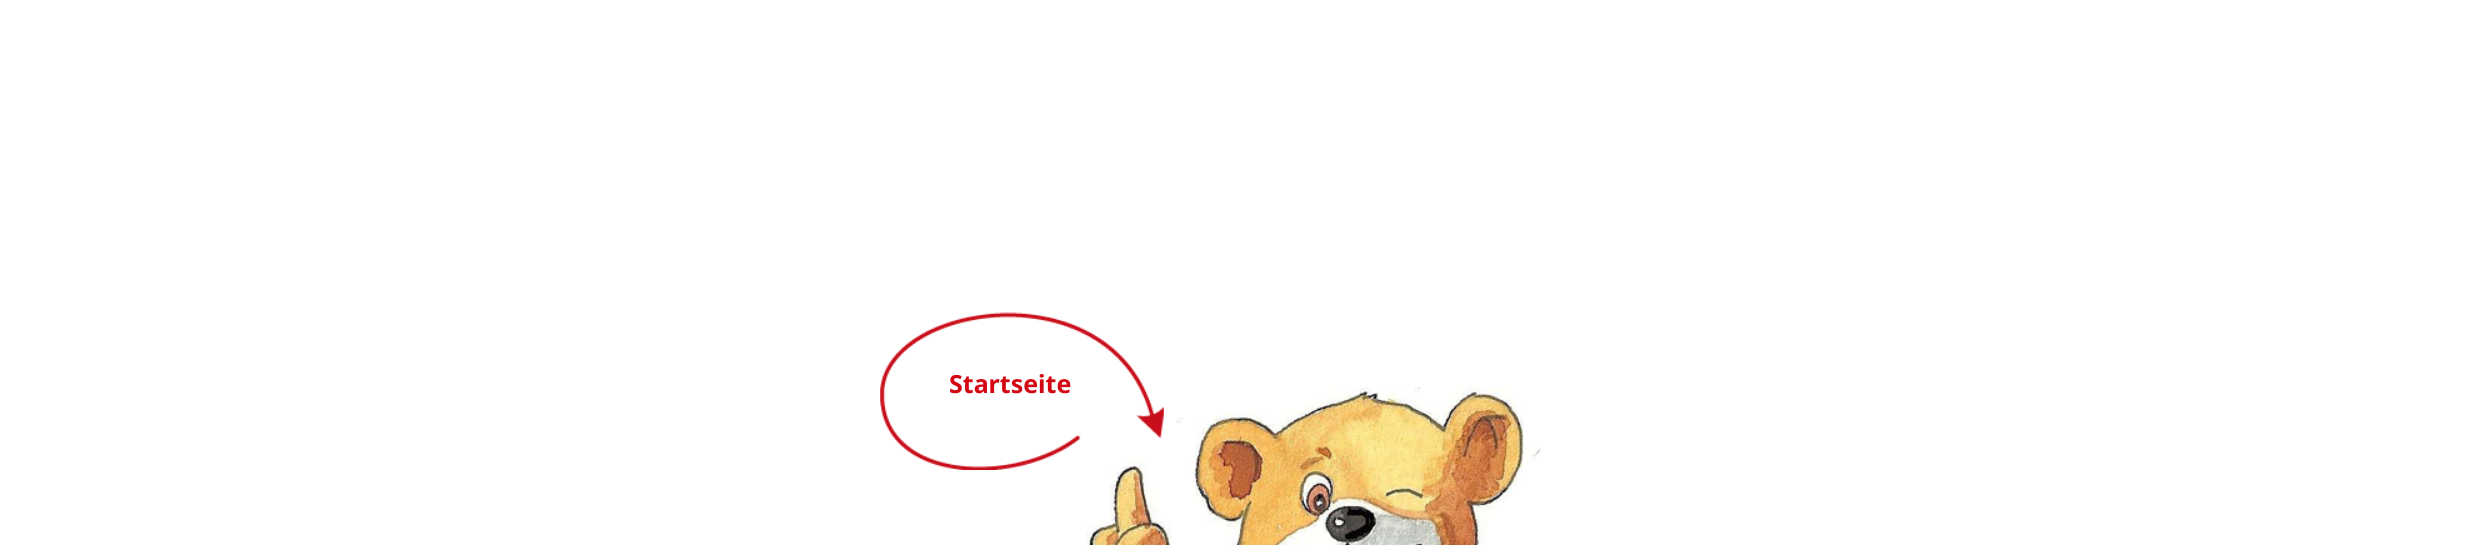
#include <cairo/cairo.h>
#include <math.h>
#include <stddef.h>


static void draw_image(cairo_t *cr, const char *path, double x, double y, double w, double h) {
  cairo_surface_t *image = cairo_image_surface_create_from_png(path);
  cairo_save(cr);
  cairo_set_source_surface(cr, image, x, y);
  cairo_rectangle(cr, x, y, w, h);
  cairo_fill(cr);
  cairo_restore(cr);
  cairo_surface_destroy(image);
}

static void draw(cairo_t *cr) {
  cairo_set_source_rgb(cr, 1, 1, 1);
  cairo_paint(cr);
  draw_image(cr, "images/2.png", 1086, 387, 456, 158);
  draw_image(cr, "images/1.png", 880, 312, 284, 158);
  cairo_select_font_face(cr, "Noto Sans", CAIRO_FONT_SLANT_NORMAL, CAIRO_FONT_WEIGHT_BOLD);
  cairo_set_font_size(cr, 25);
  cairo_set_source_rgb(cr, 212 / 255.0, 6 / 255.0, 18 / 255.0);
  cairo_move_to(cr, 949, 393);
  cairo_show_text(cr, "Startseite");
}

int main(void) {
  cairo_surface_t *surface = cairo_image_surface_create(CAIRO_FORMAT_RGB24, 2491, 545);
  cairo_t *cr = cairo_create(surface);
  cairo_font_options_t *options = cairo_font_options_create();
  cairo_font_options_set_hint_metrics(options, CAIRO_HINT_METRICS_OFF);
  cairo_font_options_set_hint_style(options, CAIRO_HINT_STYLE_NONE);
  cairo_set_font_options(cr, options);
  cairo_set_miter_limit(cr, 4);
  draw(cr);
  cairo_surface_write_to_png(surface, "out.png");
  cairo_font_options_destroy(options);
  cairo_destroy(cr);
  cairo_surface_destroy(surface);
  return 0;
}
